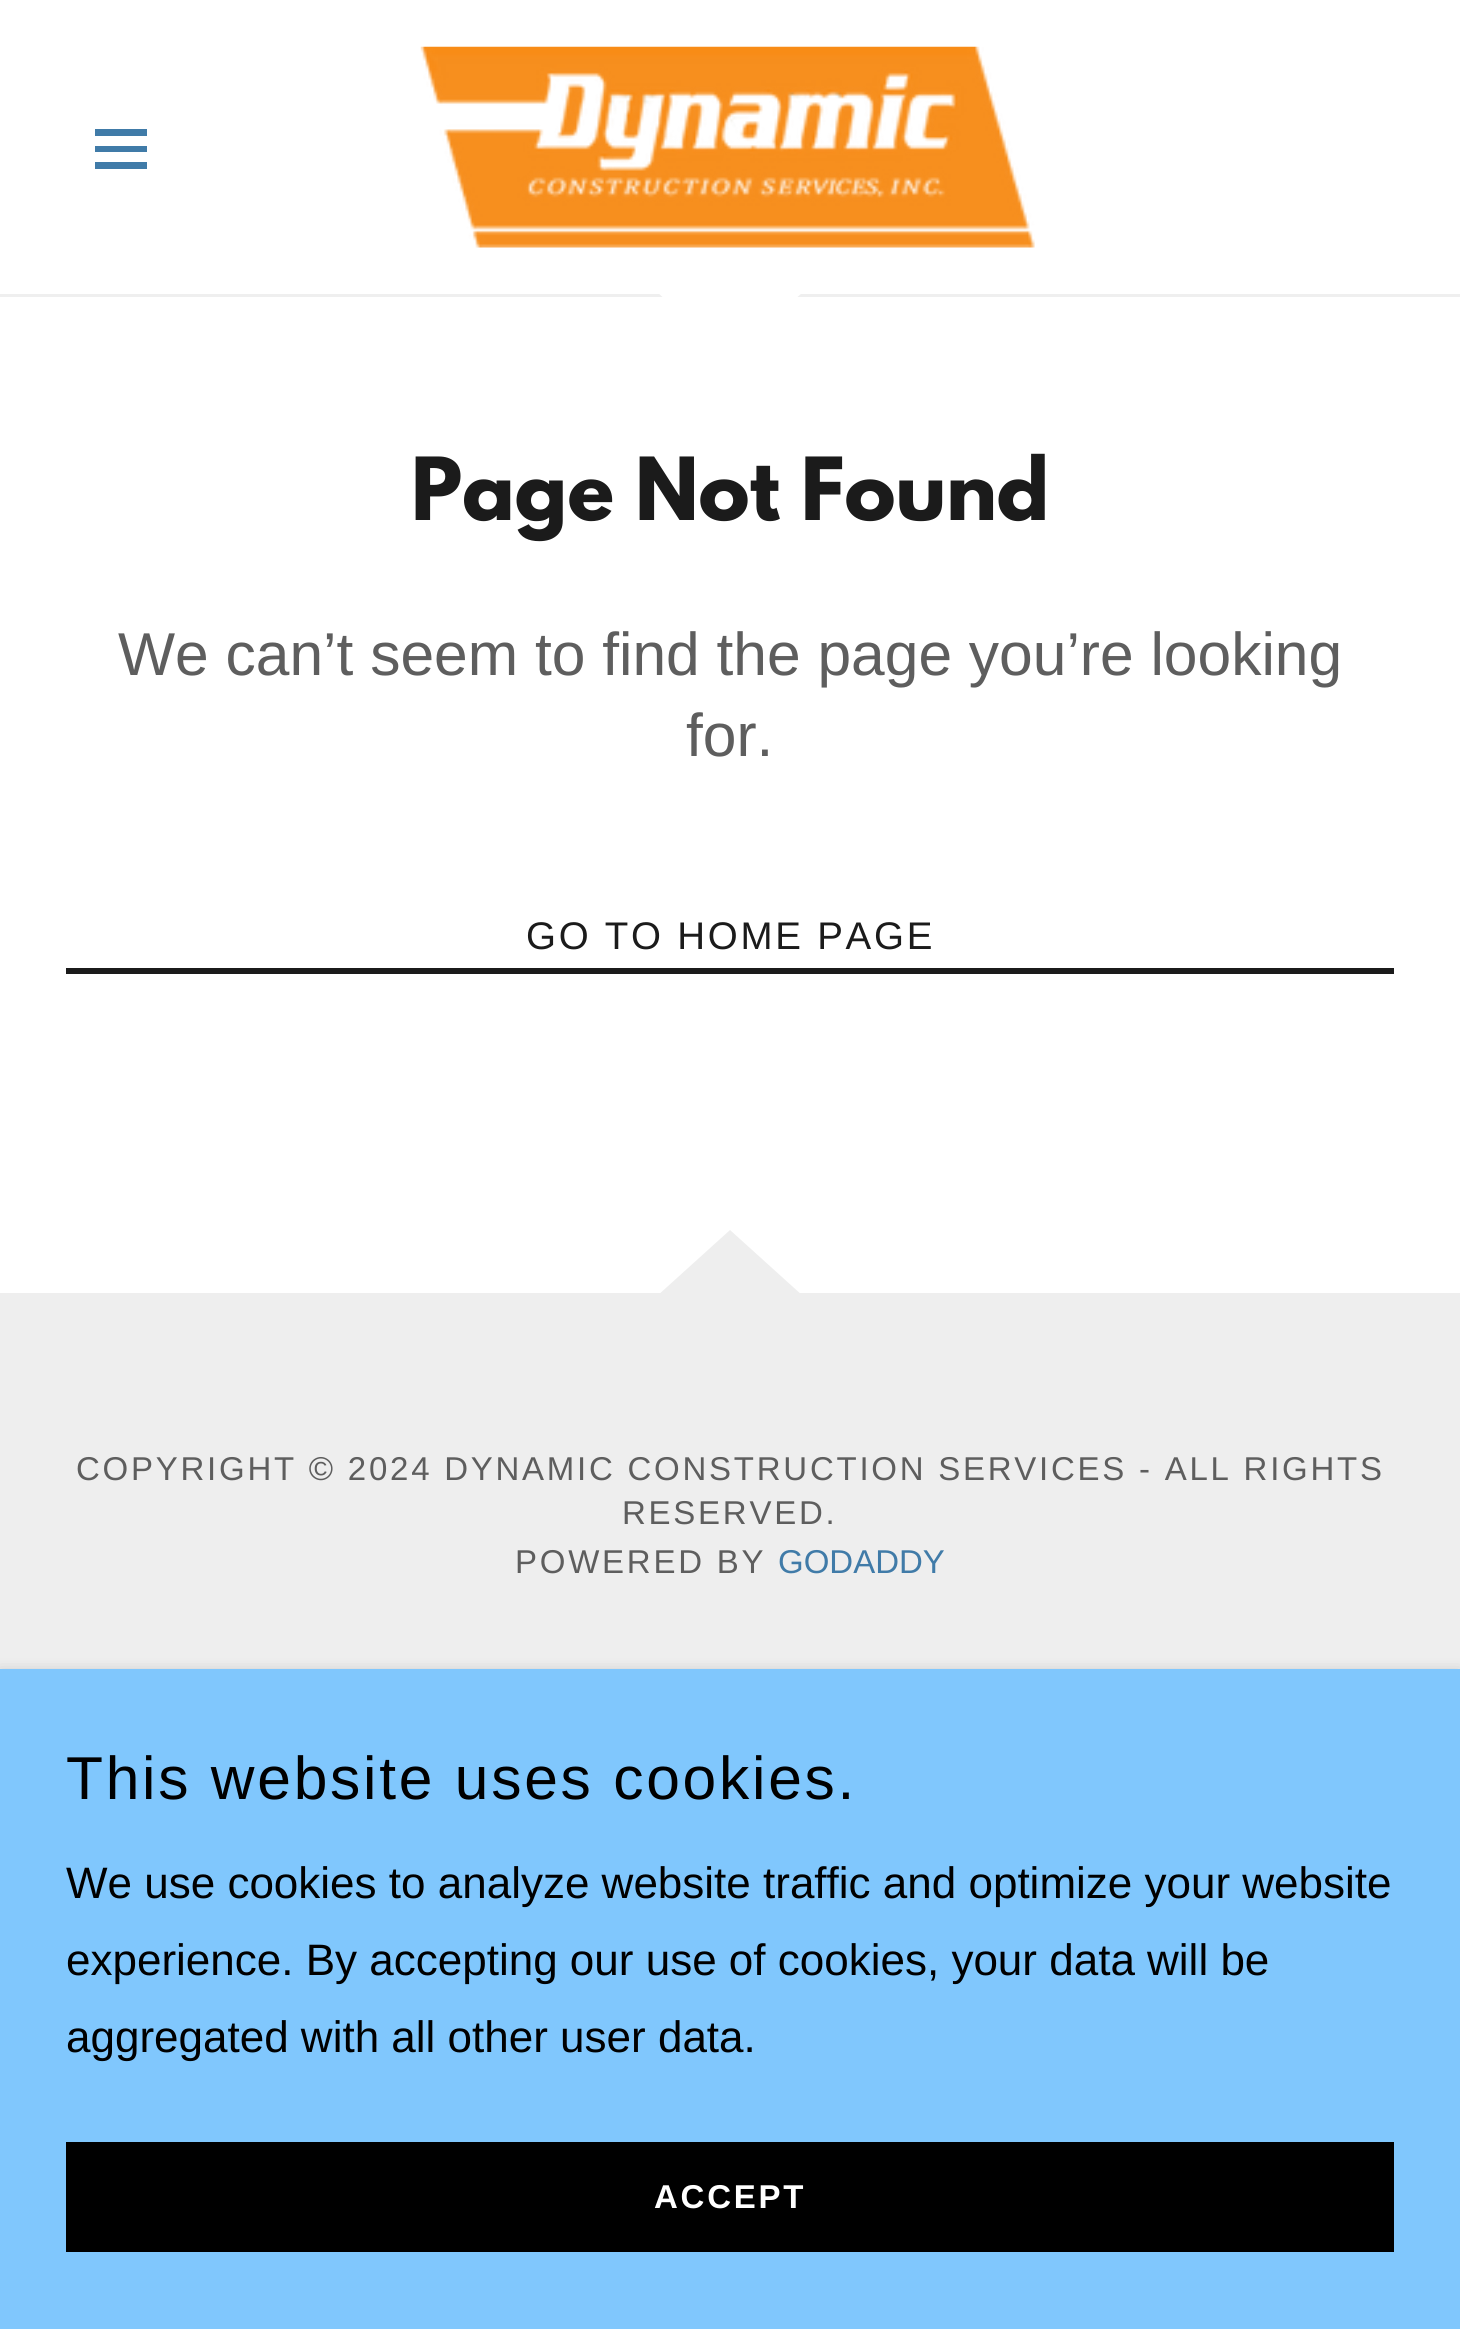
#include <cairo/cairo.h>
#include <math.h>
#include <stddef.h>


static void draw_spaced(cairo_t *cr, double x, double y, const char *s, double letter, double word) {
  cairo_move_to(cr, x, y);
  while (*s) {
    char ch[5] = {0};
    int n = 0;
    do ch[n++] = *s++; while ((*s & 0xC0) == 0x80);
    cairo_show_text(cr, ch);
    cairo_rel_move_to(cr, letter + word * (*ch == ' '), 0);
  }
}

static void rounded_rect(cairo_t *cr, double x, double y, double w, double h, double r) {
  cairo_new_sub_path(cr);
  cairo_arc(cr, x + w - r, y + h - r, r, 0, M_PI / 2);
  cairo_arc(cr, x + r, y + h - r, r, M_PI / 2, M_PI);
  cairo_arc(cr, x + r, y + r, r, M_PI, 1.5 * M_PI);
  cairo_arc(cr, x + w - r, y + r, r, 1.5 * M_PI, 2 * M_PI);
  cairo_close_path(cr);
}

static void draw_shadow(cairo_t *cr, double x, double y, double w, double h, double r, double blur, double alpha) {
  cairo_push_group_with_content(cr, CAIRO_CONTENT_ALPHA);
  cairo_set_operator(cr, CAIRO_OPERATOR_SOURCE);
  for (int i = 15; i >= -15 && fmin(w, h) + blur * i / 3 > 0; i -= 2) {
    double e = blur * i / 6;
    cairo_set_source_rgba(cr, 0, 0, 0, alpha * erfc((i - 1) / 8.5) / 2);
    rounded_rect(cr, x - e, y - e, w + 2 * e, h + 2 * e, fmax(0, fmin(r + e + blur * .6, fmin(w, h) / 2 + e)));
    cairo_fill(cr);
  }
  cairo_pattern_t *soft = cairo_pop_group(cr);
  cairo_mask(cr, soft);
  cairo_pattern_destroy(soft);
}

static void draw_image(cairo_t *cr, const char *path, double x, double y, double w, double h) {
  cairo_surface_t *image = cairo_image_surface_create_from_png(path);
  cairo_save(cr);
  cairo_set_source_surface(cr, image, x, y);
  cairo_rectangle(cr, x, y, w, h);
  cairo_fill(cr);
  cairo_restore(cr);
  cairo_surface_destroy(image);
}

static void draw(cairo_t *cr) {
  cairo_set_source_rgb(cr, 1, 1, 1);
  cairo_paint(cr);
  cairo_set_source_rgb(cr, 239 / 255.0, 239 / 255.0, 239 / 255.0);
  cairo_rectangle(cr, 0, 294, 1460, 3);
  cairo_fill(cr);
  cairo_set_source_rgb(cr, 64 / 255.0, 123 / 255.0, 168 / 255.0);
  cairo_rectangle(cr, 95, 129, 52, 7);
  cairo_fill(cr);
  cairo_rectangle(cr, 95, 146, 52, 6);
  cairo_fill(cr);
  cairo_rectangle(cr, 95, 162, 52, 7);
  cairo_fill(cr);
  draw_image(cr, "images/1.png", 420, 46, 615, 202);
  cairo_set_source_rgb(cr, 1, 1, 1);
  cairo_set_fill_rule(cr, CAIRO_FILL_RULE_EVEN_ODD);
  cairo_new_path(cr);
  cairo_move_to(cr, 730, 358);
  cairo_line_to(cr, 803, 292);
  cairo_line_to(cr, 657, 292);
  cairo_close_path(cr);
  cairo_fill(cr);
  cairo_set_source_rgb(cr, 27 / 255.0, 27 / 255.0, 27 / 255.0);
  cairo_rectangle(cr, 66, 968, 1328, 6);
  cairo_fill(cr);
  cairo_set_source_rgb(cr, 238 / 255.0, 238 / 255.0, 238 / 255.0);
  cairo_rectangle(cr, 0, 1293, 1460, 376);
  cairo_fill(cr);
  cairo_save(cr);
  cairo_set_fill_rule(cr, CAIRO_FILL_RULE_WINDING);
  cairo_rectangle(cr, 657, 1229, 146, 66);
  cairo_clip(cr);
  cairo_set_fill_rule(cr, CAIRO_FILL_RULE_EVEN_ODD);
  cairo_new_path(cr);
  cairo_move_to(cr, 730, 1230);
  cairo_line_to(cr, 657, 1296);
  cairo_line_to(cr, 803, 1296);
  cairo_close_path(cr);
  cairo_fill(cr);
  cairo_restore(cr);
  cairo_set_source_rgb(cr, 0, 0, 0);
  draw_shadow(cr, 0, 1675, 1460, 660, 0, 8, 0.3);
  cairo_set_source_rgb(cr, 128 / 255.0, 199 / 255.0, 253 / 255.0);
  cairo_rectangle(cr, 0, 1669, 1460, 660);
  cairo_fill(cr);
  cairo_set_source_rgb(cr, 0, 0, 0);
  cairo_rectangle(cr, 66, 2142, 1328, 110);
  cairo_fill(cr);
  cairo_select_font_face(cr, "League Spartan", CAIRO_FONT_SLANT_NORMAL, CAIRO_FONT_WEIGHT_BOLD);
  cairo_set_font_size(cr, 77);
  cairo_set_source_rgb(cr, 27 / 255.0, 27 / 255.0, 27 / 255.0);
  cairo_move_to(cr, 411, 520);
  cairo_show_text(cr, "Page Not Found");
  cairo_select_font_face(cr, "Liberation Sans", CAIRO_FONT_SLANT_NORMAL, CAIRO_FONT_WEIGHT_NORMAL);
  cairo_set_font_size(cr, 60.5);
  cairo_set_source_rgb(cr, 94 / 255.0, 94 / 255.0, 94 / 255.0);
  cairo_move_to(cr, 118, 675);
  cairo_show_text(cr, "We can’t seem to find the page you’re looking");
  cairo_move_to(cr, 686, 756);
  cairo_show_text(cr, "for.");
  cairo_set_font_size(cr, 38.5);
  cairo_set_source_rgb(cr, 27 / 255.0, 27 / 255.0, 27 / 255.0);
  draw_spaced(cr, 526, 949, "GO TO HOME PAGE", 2.75, 0);
  cairo_set_font_size(cr, 33);
  cairo_set_source_rgb(cr, 94 / 255.0, 94 / 255.0, 94 / 255.0);
  draw_spaced(cr, 76, 1480, "COPYRIGHT © 2024 DYNAMIC CONSTRUCTION SERVICES - ALL RIGHTS", 2.75, 0);
  draw_spaced(cr, 622, 1524, "RESERVED.", 2.75, 0);
  draw_spaced(cr, 515, 1573, "POWERED BY", 2.75, 0);
  cairo_set_source_rgb(cr, 64 / 255.0, 123 / 255.0, 168 / 255.0);
  cairo_move_to(cr, 778, 1573);
  cairo_show_text(cr, "GODADDY");
  cairo_set_font_size(cr, 60.5);
  cairo_set_source_rgb(cr, 0, 0, 0);
  draw_spaced(cr, 66, 1799, "This website uses cookies.", 2.75, 0);
  cairo_set_font_size(cr, 44);
  cairo_move_to(cr, 66, 1898);
  cairo_show_text(cr, "We use cookies to analyze website traffic and optimize your website");
  cairo_move_to(cr, 66, 1975);
  cairo_show_text(cr, "experience. By accepting our use of cookies, your data will be");
  cairo_move_to(cr, 66, 2052);
  cairo_show_text(cr, "aggregated with all other user data.");
  cairo_select_font_face(cr, "Liberation Sans", CAIRO_FONT_SLANT_NORMAL, CAIRO_FONT_WEIGHT_BOLD);
  cairo_set_font_size(cr, 33);
  cairo_set_source_rgb(cr, 1, 1, 1);
  draw_spaced(cr, 654, 2208, "ACCEPT", 2.75, 0);
}

int main(void) {
  cairo_surface_t *surface = cairo_image_surface_create(CAIRO_FORMAT_RGB24, 1460, 2329);
  cairo_t *cr = cairo_create(surface);
  cairo_font_options_t *options = cairo_font_options_create();
  cairo_font_options_set_hint_metrics(options, CAIRO_HINT_METRICS_OFF);
  cairo_font_options_set_hint_style(options, CAIRO_HINT_STYLE_NONE);
  cairo_set_font_options(cr, options);
  cairo_set_miter_limit(cr, 4);
  draw(cr);
  cairo_surface_write_to_png(surface, "out.png");
  cairo_font_options_destroy(options);
  cairo_destroy(cr);
  cairo_surface_destroy(surface);
  return 0;
}
